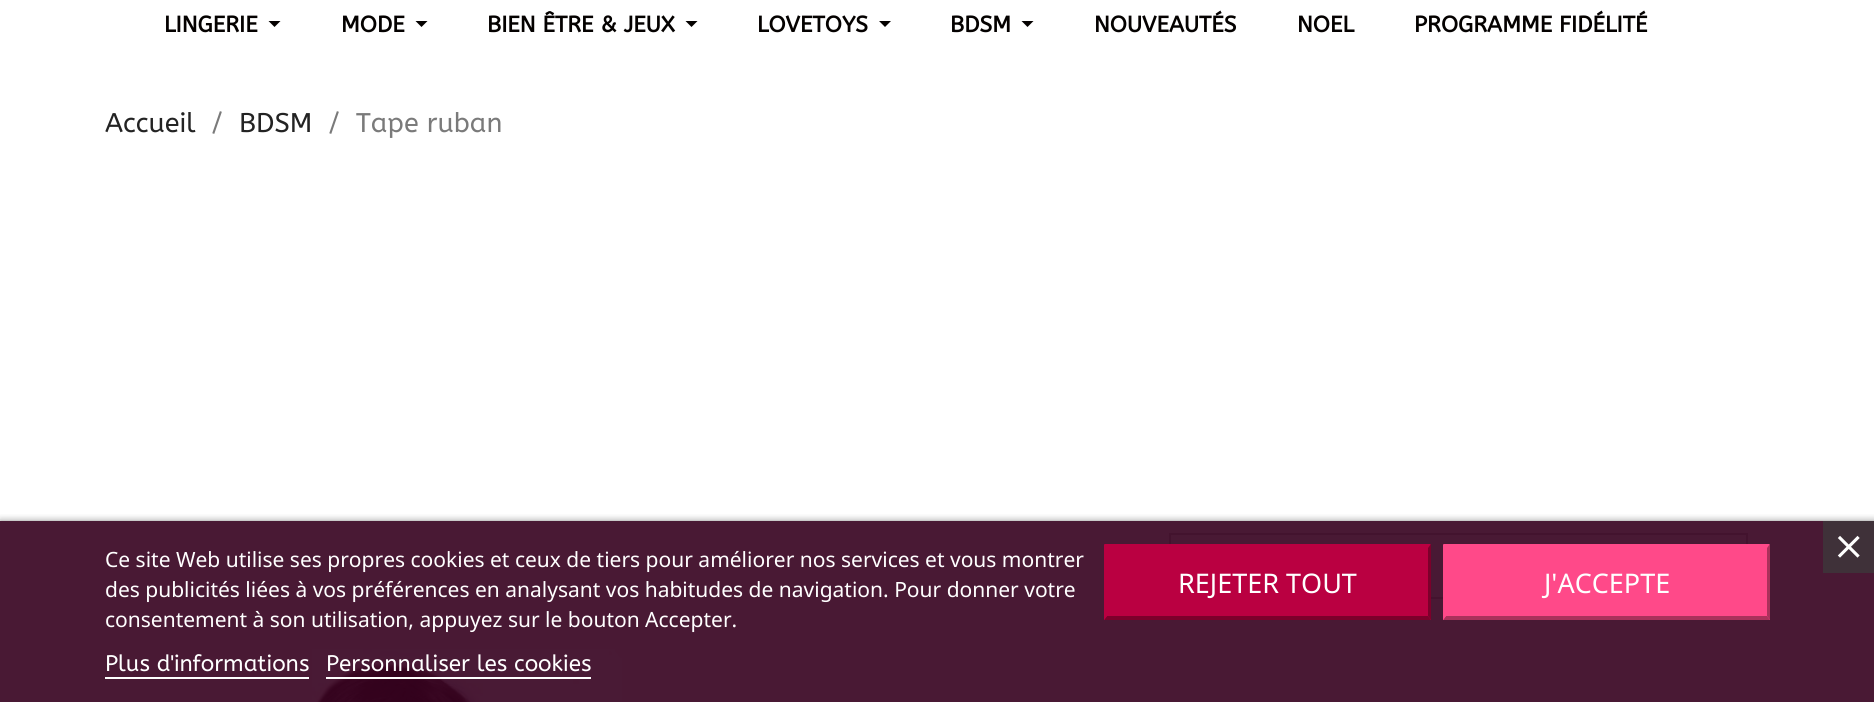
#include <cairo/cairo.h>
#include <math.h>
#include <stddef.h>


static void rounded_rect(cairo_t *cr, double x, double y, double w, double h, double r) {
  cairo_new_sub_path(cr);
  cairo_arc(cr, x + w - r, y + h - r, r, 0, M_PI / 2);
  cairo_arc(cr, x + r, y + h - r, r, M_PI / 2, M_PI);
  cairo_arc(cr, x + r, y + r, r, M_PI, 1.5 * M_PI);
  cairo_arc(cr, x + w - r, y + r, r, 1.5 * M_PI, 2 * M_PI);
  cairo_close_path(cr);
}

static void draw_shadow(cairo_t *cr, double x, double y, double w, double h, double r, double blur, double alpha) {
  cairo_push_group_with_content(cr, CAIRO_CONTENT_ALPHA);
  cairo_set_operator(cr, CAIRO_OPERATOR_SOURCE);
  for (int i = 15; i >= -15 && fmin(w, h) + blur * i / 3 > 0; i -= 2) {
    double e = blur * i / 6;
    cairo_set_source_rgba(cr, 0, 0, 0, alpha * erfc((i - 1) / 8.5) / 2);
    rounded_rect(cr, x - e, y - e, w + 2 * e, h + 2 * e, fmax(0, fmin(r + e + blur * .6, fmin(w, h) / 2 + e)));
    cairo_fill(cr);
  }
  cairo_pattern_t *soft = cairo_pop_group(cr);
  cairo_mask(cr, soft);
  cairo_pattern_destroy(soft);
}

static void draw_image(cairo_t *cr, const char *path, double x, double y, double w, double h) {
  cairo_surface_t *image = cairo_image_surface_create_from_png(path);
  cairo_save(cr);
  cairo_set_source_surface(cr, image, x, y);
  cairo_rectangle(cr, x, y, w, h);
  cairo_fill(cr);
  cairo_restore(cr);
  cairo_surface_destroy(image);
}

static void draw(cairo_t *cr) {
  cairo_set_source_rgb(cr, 1, 1, 1);
  cairo_paint(cr);
  cairo_set_source_rgb(cr, 73 / 255.0, 25 / 255.0, 52 / 255.0);
  cairo_rectangle(cr, 0, 521, 1874, 181);
  cairo_fill(cr);
  cairo_set_source_rgb(cr, 4 / 255.0, 1 / 255.0, 0);
  cairo_new_path(cr);
  cairo_move_to(cr, 268.5, 21);
  cairo_line_to(cr, 280.5, 21);
  cairo_line_to(cr, 274.5, 27);
  cairo_close_path(cr);
  cairo_fill(cr);
  cairo_new_path(cr);
  cairo_move_to(cr, 415.5, 21);
  cairo_line_to(cr, 427.5, 21);
  cairo_line_to(cr, 421.5, 27);
  cairo_close_path(cr);
  cairo_fill(cr);
  cairo_new_path(cr);
  cairo_move_to(cr, 685.5, 21);
  cairo_line_to(cr, 697.5, 21);
  cairo_line_to(cr, 691.5, 27);
  cairo_close_path(cr);
  cairo_fill(cr);
  cairo_new_path(cr);
  cairo_move_to(cr, 879, 21);
  cairo_line_to(cr, 891, 21);
  cairo_line_to(cr, 885, 27);
  cairo_close_path(cr);
  cairo_fill(cr);
  cairo_new_path(cr);
  cairo_move_to(cr, 1021.5, 21);
  cairo_line_to(cr, 1033.5, 21);
  cairo_line_to(cr, 1027.5, 27);
  cairo_close_path(cr);
  cairo_fill(cr);
  cairo_rectangle(cr, 1170, 534, 577, 64);
  cairo_set_source_rgb(cr, 67 / 255.0, 19 / 255.0, 46 / 255.0);
  cairo_stroke(cr);
  draw_image(cr, "images/1.png", 312, 649, 310, 53);
  cairo_save(cr);
  cairo_rectangle(cr, 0, 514, 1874, 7);
  cairo_clip(cr);
  cairo_set_source_rgb(cr, 112 / 255.0, 112 / 255.0, 112 / 255.0);
  draw_shadow(cr, 0, 522, 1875, 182, 0, 4, 1);
  cairo_restore(cr);
  cairo_set_source_rgb(cr, 1, 1, 1);
  cairo_rectangle(cr, 105, 677, 204, 2);
  cairo_fill(cr);
  cairo_rectangle(cr, 326, 677, 265, 2);
  cairo_fill(cr);
  cairo_set_source_rgb(cr, 186 / 255.0, 0, 65 / 255.0);
  cairo_rectangle(cr, 1104, 545, 327, 75);
  cairo_fill(cr);
  cairo_new_path(cr);
  cairo_move_to(cr, 1104, 544);
  cairo_line_to(cr, 1431, 544);
  cairo_line_to(cr, 1428, 548);
  cairo_line_to(cr, 1107, 548);
  cairo_close_path(cr);
  cairo_fill(cr);
  cairo_set_source_rgb(cr, 124 / 255.0, 0, 43 / 255.0);
  cairo_new_path(cr);
  cairo_move_to(cr, 1431, 544);
  cairo_line_to(cr, 1431, 620);
  cairo_line_to(cr, 1428, 616);
  cairo_line_to(cr, 1428, 548);
  cairo_close_path(cr);
  cairo_fill(cr);
  cairo_new_path(cr);
  cairo_move_to(cr, 1431, 620);
  cairo_line_to(cr, 1104, 620);
  cairo_line_to(cr, 1107, 616);
  cairo_line_to(cr, 1428, 616);
  cairo_close_path(cr);
  cairo_fill(cr);
  cairo_set_source_rgb(cr, 186 / 255.0, 0, 65 / 255.0);
  cairo_new_path(cr);
  cairo_move_to(cr, 1104, 620);
  cairo_line_to(cr, 1104, 544);
  cairo_line_to(cr, 1107, 548);
  cairo_line_to(cr, 1107, 616);
  cairo_close_path(cr);
  cairo_fill(cr);
  cairo_set_source_rgb(cr, 1, 73 / 255.0, 137 / 255.0);
  cairo_rectangle(cr, 1443, 545, 327, 75);
  cairo_fill(cr);
  cairo_new_path(cr);
  cairo_move_to(cr, 1443, 544);
  cairo_line_to(cr, 1770, 544);
  cairo_line_to(cr, 1767, 548);
  cairo_line_to(cr, 1446, 548);
  cairo_close_path(cr);
  cairo_fill(cr);
  cairo_set_source_rgb(cr, 170 / 255.0, 49 / 255.0, 91 / 255.0);
  cairo_new_path(cr);
  cairo_move_to(cr, 1770, 544);
  cairo_line_to(cr, 1770, 620);
  cairo_line_to(cr, 1767, 616);
  cairo_line_to(cr, 1767, 548);
  cairo_close_path(cr);
  cairo_fill(cr);
  cairo_new_path(cr);
  cairo_move_to(cr, 1770, 620);
  cairo_line_to(cr, 1443, 620);
  cairo_line_to(cr, 1446, 616);
  cairo_line_to(cr, 1767, 616);
  cairo_close_path(cr);
  cairo_fill(cr);
  cairo_set_source_rgb(cr, 1, 73 / 255.0, 137 / 255.0);
  cairo_new_path(cr);
  cairo_move_to(cr, 1443, 620);
  cairo_line_to(cr, 1443, 544);
  cairo_line_to(cr, 1446, 548);
  cairo_line_to(cr, 1446, 616);
  cairo_close_path(cr);
  cairo_fill(cr);
  cairo_set_source_rgb(cr, 63 / 255.0, 49 / 255.0, 57 / 255.0);
  cairo_rectangle(cr, 1823, 521, 51, 52);
  cairo_fill(cr);
  draw_image(cr, "images/2.png", 1837, 535, 23, 23);
  cairo_select_font_face(cr, "ABeeZee", CAIRO_FONT_SLANT_NORMAL, CAIRO_FONT_WEIGHT_BOLD);
  cairo_set_font_size(cr, 22.5);
  cairo_set_source_rgb(cr, 4 / 255.0, 1 / 255.0, 0);
  cairo_move_to(cr, 164, 32);
  cairo_show_text(cr, "LINGERIE");
  cairo_move_to(cr, 341, 32);
  cairo_show_text(cr, "MODE");
  cairo_move_to(cr, 487, 32);
  cairo_show_text(cr, "BIEN ÊTRE & JEUX");
  cairo_move_to(cr, 757, 32);
  cairo_show_text(cr, "LOVETOYS");
  cairo_move_to(cr, 950, 32);
  cairo_show_text(cr, "BDSM");
  cairo_move_to(cr, 1094, 32);
  cairo_show_text(cr, "NOUVEAUTÉS");
  cairo_move_to(cr, 1297, 32);
  cairo_show_text(cr, "NOEL");
  cairo_move_to(cr, 1414, 32);
  cairo_show_text(cr, "PROGRAMME FIDÉLITÉ");
  cairo_select_font_face(cr, "ABeeZee", CAIRO_FONT_SLANT_NORMAL, CAIRO_FONT_WEIGHT_NORMAL);
  cairo_set_font_size(cr, 27);
  cairo_set_source_rgb(cr, 35 / 255.0, 35 / 255.0, 35 / 255.0);
  cairo_move_to(cr, 105, 132);
  cairo_show_text(cr, "Accueil");
  cairo_set_source_rgb(cr, 122 / 255.0, 122 / 255.0, 122 / 255.0);
  cairo_move_to(cr, 211, 132);
  cairo_show_text(cr, "/");
  cairo_set_source_rgb(cr, 35 / 255.0, 35 / 255.0, 35 / 255.0);
  cairo_move_to(cr, 239, 132);
  cairo_show_text(cr, "BDSM");
  cairo_set_source_rgb(cr, 122 / 255.0, 122 / 255.0, 122 / 255.0);
  cairo_move_to(cr, 328, 132);
  cairo_show_text(cr, "/");
  cairo_move_to(cr, 356, 132);
  cairo_show_text(cr, "Tape ruban");
  cairo_select_font_face(cr, "Noto Sans", CAIRO_FONT_SLANT_NORMAL, CAIRO_FONT_WEIGHT_NORMAL);
  cairo_set_font_size(cr, 21);
  cairo_set_source_rgb(cr, 1, 1, 1);
  cairo_move_to(cr, 105, 567);
  cairo_show_text(cr, "Ce site Web utilise ses propres cookies et ceux de tiers pour améliorer nos services et vous montrer");
  cairo_move_to(cr, 105, 597);
  cairo_show_text(cr, "des publicités liées à vos préférences en analysant vos habitudes de navigation. Pour donner votre");
  cairo_move_to(cr, 105, 627);
  cairo_show_text(cr, "consentement à son utilisation, appuyez sur le bouton Accepter.");
  cairo_select_font_face(cr, "ABeeZee", CAIRO_FONT_SLANT_NORMAL, CAIRO_FONT_WEIGHT_NORMAL);
  cairo_set_font_size(cr, 22.5);
  cairo_move_to(cr, 105, 671);
  cairo_show_text(cr, "Plus d'informations");
  cairo_move_to(cr, 326, 671);
  cairo_show_text(cr, "Personnaliser les cookies");
  cairo_select_font_face(cr, "Noto Sans", CAIRO_FONT_SLANT_NORMAL, CAIRO_FONT_WEIGHT_NORMAL);
  cairo_set_font_size(cr, 27);
  cairo_move_to(cr, 1178, 593);
  cairo_show_text(cr, "REJETER TOUT");
  cairo_move_to(cr, 1544, 593);
  cairo_show_text(cr, "J'ACCEPTE");
}

int main(void) {
  cairo_surface_t *surface = cairo_image_surface_create(CAIRO_FORMAT_RGB24, 1874, 702);
  cairo_t *cr = cairo_create(surface);
  cairo_font_options_t *options = cairo_font_options_create();
  cairo_font_options_set_hint_metrics(options, CAIRO_HINT_METRICS_OFF);
  cairo_font_options_set_hint_style(options, CAIRO_HINT_STYLE_NONE);
  cairo_set_font_options(cr, options);
  cairo_set_miter_limit(cr, 4);
  draw(cr);
  cairo_surface_write_to_png(surface, "out.png");
  cairo_font_options_destroy(options);
  cairo_destroy(cr);
  cairo_surface_destroy(surface);
  return 0;
}
